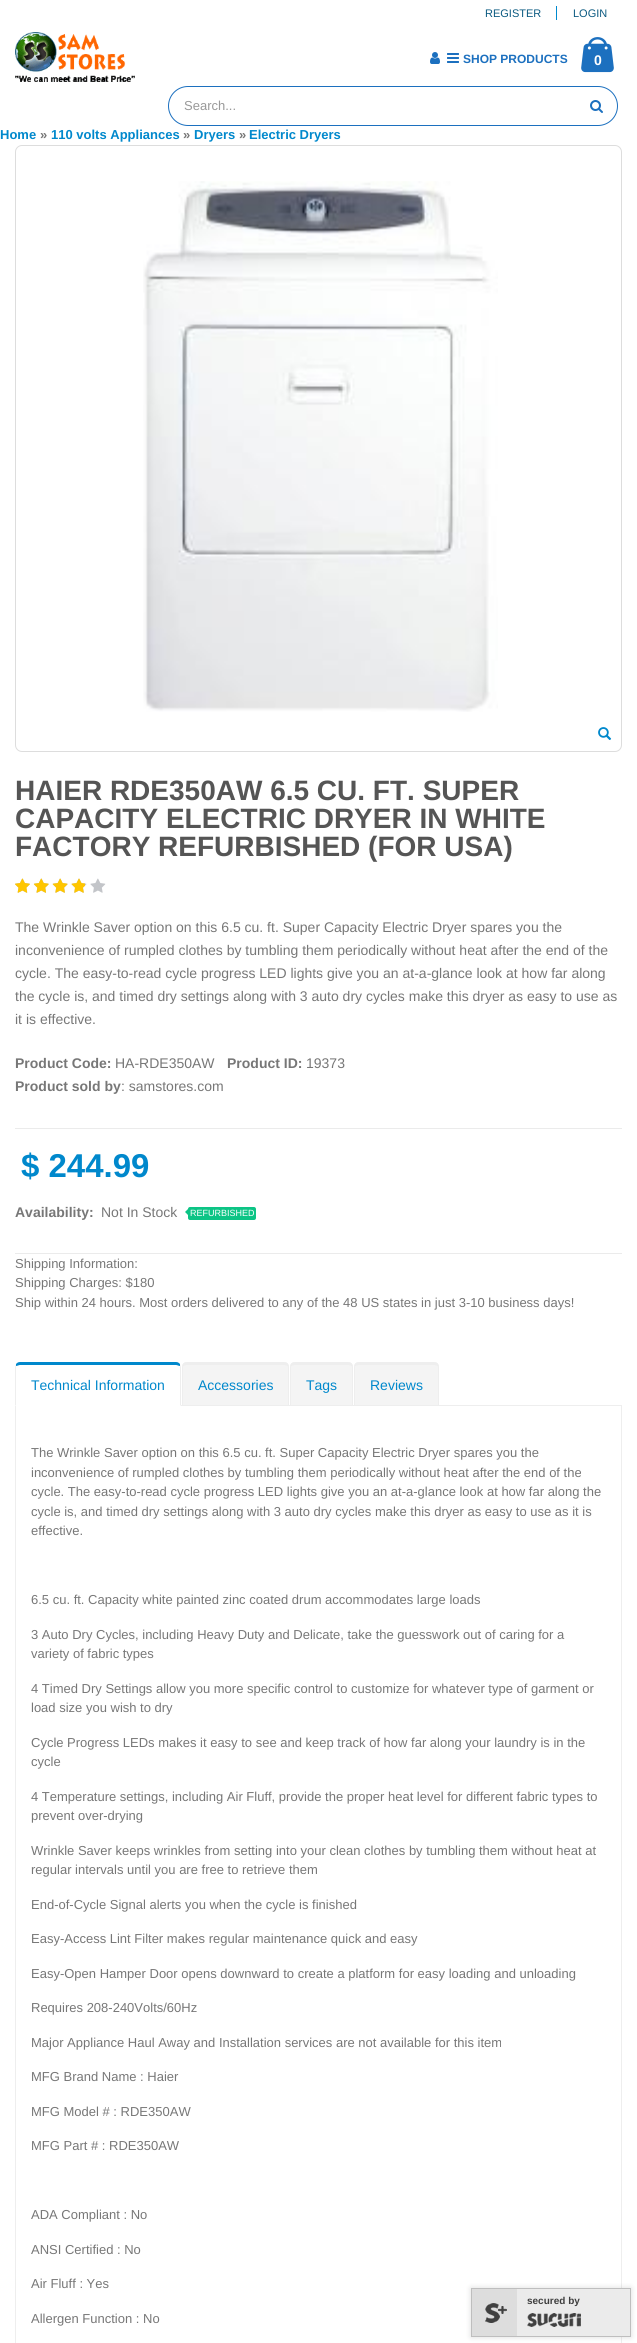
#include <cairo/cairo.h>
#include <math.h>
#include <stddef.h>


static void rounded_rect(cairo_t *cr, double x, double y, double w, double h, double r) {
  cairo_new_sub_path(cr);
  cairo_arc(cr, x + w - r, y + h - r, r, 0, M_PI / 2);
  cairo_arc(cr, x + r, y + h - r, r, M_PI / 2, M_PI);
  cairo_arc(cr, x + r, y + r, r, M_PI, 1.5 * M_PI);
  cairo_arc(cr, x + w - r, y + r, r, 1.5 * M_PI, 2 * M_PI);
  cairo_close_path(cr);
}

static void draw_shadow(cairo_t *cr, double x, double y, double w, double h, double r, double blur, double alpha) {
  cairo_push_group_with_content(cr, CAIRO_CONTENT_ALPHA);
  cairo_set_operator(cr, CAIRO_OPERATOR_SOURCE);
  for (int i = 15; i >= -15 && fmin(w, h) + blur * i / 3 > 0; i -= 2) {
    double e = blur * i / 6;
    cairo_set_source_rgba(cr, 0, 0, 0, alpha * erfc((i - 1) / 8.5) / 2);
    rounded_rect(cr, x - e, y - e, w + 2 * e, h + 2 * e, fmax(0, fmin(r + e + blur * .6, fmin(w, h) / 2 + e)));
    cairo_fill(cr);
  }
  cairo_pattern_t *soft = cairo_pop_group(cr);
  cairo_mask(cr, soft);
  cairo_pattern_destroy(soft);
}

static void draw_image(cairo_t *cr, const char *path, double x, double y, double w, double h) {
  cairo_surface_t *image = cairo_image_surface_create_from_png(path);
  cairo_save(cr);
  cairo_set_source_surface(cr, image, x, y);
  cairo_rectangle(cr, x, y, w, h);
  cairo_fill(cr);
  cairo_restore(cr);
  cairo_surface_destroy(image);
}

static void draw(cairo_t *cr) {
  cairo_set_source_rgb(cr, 1, 1, 1);
  cairo_paint(cr);
  cairo_set_source_rgb(cr, 0, 138 / 255.0, 207 / 255.0);
  cairo_rectangle(cr, 556, 6, 1, 14);
  cairo_fill(cr);
  draw_image(cr, "images/1.png", 15, 32, 120, 50);
  draw_image(cr, "images/2.png", 430, 52, 10, 12);
  draw_image(cr, "images/3.png", 447, 53, 12, 10);
  rounded_rect(cr, 168.5, 86.5, 449, 39, 19.5);
  cairo_set_source_rgb(cr, 28 / 255.0, 112 / 255.0, 191 / 255.0);
  cairo_set_line_width(cr, 1);
  cairo_stroke(cr);
  draw_image(cr, "images/4.png", 590, 100, 13, 13);
  draw_image(cr, "images/5.png", 581, 37, 33, 36);
  rounded_rect(cr, 15.5, 145.5, 606, 606, 6.5);
  cairo_set_source_rgb(cr, 221 / 255.0, 221 / 255.0, 221 / 255.0);
  cairo_stroke(cr);
  draw_image(cr, "images/6.png", 143, 181, 355, 531);
  draw_image(cr, "images/7.png", 598, 727, 14, 13);
  draw_image(cr, "images/8.png", 15, 878, 91, 15);
  draw_image(cr, "images/9.png", 15, 878, 70, 15);
  cairo_set_source_rgb(cr, 235 / 255.0, 235 / 255.0, 235 / 255.0);
  cairo_rectangle(cr, 15, 1128, 607, 1);
  cairo_fill(cr);
  cairo_rectangle(cr, 15, 1253, 607, 1);
  cairo_fill(cr);
  cairo_set_source_rgb(cr, 12 / 255.0, 196 / 255.0, 133 / 255.0);
  rounded_rect(cr, 188, 1207, 68, 13, 2);
  cairo_fill(cr);
  cairo_new_path(cr);
  cairo_move_to(cr, 188, 1209);
  cairo_line_to(cr, 188, 1215);
  cairo_line_to(cr, 185, 1212);
  cairo_close_path(cr);
  cairo_fill(cr);
  cairo_set_source_rgb(cr, 238 / 255.0, 238 / 255.0, 238 / 255.0);
  cairo_rectangle(cr, 181, 1405, 441, 1);
  cairo_fill(cr);
  cairo_set_source_rgb(cr, 0, 136 / 255.0, 204 / 255.0);
  cairo_new_path(cr);
  cairo_move_to(cr, 20, 1362);
  cairo_curve_to(cr, 18, 1362, 17, 1363, 16, 1364);
  cairo_line_to(cr, 16, 1366);
  cairo_curve_to(cr, 17, 1366, 19, 1365, 20, 1365);
  cairo_line_to(cr, 176, 1365);
  cairo_curve_to(cr, 177, 1365, 179, 1366, 180, 1366);
  cairo_line_to(cr, 180, 1364);
  cairo_curve_to(cr, 179, 1363, 178, 1362, 176, 1362);
  cairo_close_path(cr);
  cairo_fill(cr);
  cairo_set_source_rgb(cr, 238 / 255.0, 238 / 255.0, 238 / 255.0);
  cairo_new_path(cr);
  cairo_move_to(cr, 181, 1406);
  cairo_line_to(cr, 181, 1367);
  cairo_line_to(cr, 180, 1364);
  cairo_line_to(cr, 180, 1366);
  cairo_curve_to(cr, 180, 1367, 180, 1401, 180, 1405);
  cairo_close_path(cr);
  cairo_fill(cr);
  cairo_new_path(cr);
  cairo_move_to(cr, 15, 1406);
  cairo_line_to(cr, 16, 1405);
  cairo_curve_to(cr, 16, 1401, 16, 1367, 16, 1366);
  cairo_line_to(cr, 16, 1364);
  cairo_line_to(cr, 15, 1367);
  cairo_close_path(cr);
  cairo_fill(cr);
  cairo_set_source_rgb(cr, 244 / 255.0, 244 / 255.0, 244 / 255.0);
  cairo_new_path(cr);
  cairo_move_to(cr, 187, 1362);
  cairo_line_to(cr, 284, 1362);
  cairo_curve_to(cr, 287, 1362, 289, 1364, 289, 1367);
  cairo_line_to(cr, 289, 1405);
  cairo_line_to(cr, 182, 1405);
  cairo_line_to(cr, 182, 1367);
  cairo_curve_to(cr, 182, 1364, 184, 1362, 187, 1362);
  cairo_close_path(cr);
  cairo_fill(cr);
  cairo_set_source_rgb(cr, 238 / 255.0, 238 / 255.0, 238 / 255.0);
  cairo_set_fill_rule(cr, CAIRO_FILL_RULE_EVEN_ODD);
  cairo_new_path(cr);
  cairo_move_to(cr, 187, 1362);
  cairo_line_to(cr, 284, 1362);
  cairo_curve_to(cr, 287, 1362, 289, 1364, 289, 1367);
  cairo_line_to(cr, 289, 1405);
  cairo_line_to(cr, 182, 1405);
  cairo_line_to(cr, 182, 1367);
  cairo_curve_to(cr, 182, 1364, 184, 1362, 187, 1362);
  cairo_close_path(cr);
  cairo_move_to(cr, 187, 1365);
  cairo_line_to(cr, 284, 1365);
  cairo_curve_to(cr, 286, 1365, 288, 1366, 288, 1367);
  cairo_line_to(cr, 288, 1405);
  cairo_line_to(cr, 183, 1405);
  cairo_line_to(cr, 183, 1367);
  cairo_curve_to(cr, 183, 1366, 185, 1365, 187, 1365);
  cairo_close_path(cr);
  cairo_fill(cr);
  cairo_set_source_rgb(cr, 244 / 255.0, 244 / 255.0, 244 / 255.0);
  cairo_new_path(cr);
  cairo_move_to(cr, 295, 1362);
  cairo_line_to(cr, 348, 1362);
  cairo_curve_to(cr, 351, 1362, 353, 1364, 353, 1367);
  cairo_line_to(cr, 353, 1405);
  cairo_line_to(cr, 290, 1405);
  cairo_line_to(cr, 290, 1367);
  cairo_curve_to(cr, 290, 1364, 292, 1362, 295, 1362);
  cairo_close_path(cr);
  cairo_fill(cr);
  cairo_set_source_rgb(cr, 238 / 255.0, 238 / 255.0, 238 / 255.0);
  cairo_new_path(cr);
  cairo_move_to(cr, 295, 1362);
  cairo_line_to(cr, 348, 1362);
  cairo_curve_to(cr, 351, 1362, 353, 1364, 353, 1367);
  cairo_line_to(cr, 353, 1405);
  cairo_line_to(cr, 290, 1405);
  cairo_line_to(cr, 290, 1367);
  cairo_curve_to(cr, 290, 1364, 292, 1362, 295, 1362);
  cairo_close_path(cr);
  cairo_move_to(cr, 295, 1365);
  cairo_line_to(cr, 348, 1365);
  cairo_curve_to(cr, 350, 1365, 352, 1366, 352, 1367);
  cairo_line_to(cr, 352, 1405);
  cairo_line_to(cr, 291, 1405);
  cairo_line_to(cr, 291, 1367);
  cairo_curve_to(cr, 291, 1366, 293, 1365, 295, 1365);
  cairo_close_path(cr);
  cairo_fill(cr);
  cairo_set_source_rgb(cr, 244 / 255.0, 244 / 255.0, 244 / 255.0);
  cairo_new_path(cr);
  cairo_move_to(cr, 359, 1362);
  cairo_line_to(cr, 434, 1362);
  cairo_curve_to(cr, 437, 1362, 439, 1364, 439, 1367);
  cairo_line_to(cr, 439, 1405);
  cairo_line_to(cr, 354, 1405);
  cairo_line_to(cr, 354, 1367);
  cairo_curve_to(cr, 354, 1364, 356, 1362, 359, 1362);
  cairo_close_path(cr);
  cairo_fill(cr);
  cairo_set_source_rgb(cr, 238 / 255.0, 238 / 255.0, 238 / 255.0);
  cairo_new_path(cr);
  cairo_move_to(cr, 359, 1362);
  cairo_line_to(cr, 434, 1362);
  cairo_curve_to(cr, 437, 1362, 439, 1364, 439, 1367);
  cairo_line_to(cr, 439, 1405);
  cairo_line_to(cr, 354, 1405);
  cairo_line_to(cr, 354, 1367);
  cairo_curve_to(cr, 354, 1364, 356, 1362, 359, 1362);
  cairo_close_path(cr);
  cairo_move_to(cr, 359, 1365);
  cairo_line_to(cr, 434, 1365);
  cairo_curve_to(cr, 436, 1365, 438, 1366, 438, 1367);
  cairo_line_to(cr, 438, 1405);
  cairo_line_to(cr, 355, 1405);
  cairo_line_to(cr, 355, 1367);
  cairo_curve_to(cr, 355, 1366, 357, 1365, 359, 1365);
  cairo_close_path(cr);
  cairo_fill(cr);
  cairo_new_path(cr);
  cairo_move_to(cr, 15, 1406);
  cairo_line_to(cr, 622, 1406);
  cairo_line_to(cr, 622, 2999);
  cairo_curve_to(cr, 622, 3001, 621, 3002, 619, 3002);
  cairo_line_to(cr, 18, 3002);
  cairo_curve_to(cr, 16, 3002, 15, 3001, 15, 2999);
  cairo_close_path(cr);
  cairo_move_to(cr, 16, 1406);
  cairo_line_to(cr, 621, 1406);
  cairo_line_to(cr, 621, 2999);
  cairo_curve_to(cr, 621, 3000, 620, 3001, 619, 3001);
  cairo_line_to(cr, 18, 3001);
  cairo_curve_to(cr, 17, 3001, 16, 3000, 16, 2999);
  cairo_close_path(cr);
  cairo_fill(cr);
  cairo_set_source_rgb(cr, 0, 0, 0);
  draw_shadow(cr, 471, 2288, 160, 49, 0, 3, 0.14);
  cairo_set_source_rgb(cr, 235 / 255.0, 235 / 255.0, 235 / 255.0);
  cairo_rectangle(cr, 517, 2289, 113, 47);
  cairo_fill(cr);
  cairo_rectangle(cr, 471.5, 2288.5, 159, 48);
  cairo_set_source_rgb(cr, 190 / 255.0, 190 / 255.0, 190 / 255.0);
  cairo_stroke(cr);
  cairo_set_source_rgb(cr, 221 / 255.0, 221 / 255.0, 221 / 255.0);
  cairo_rectangle(cr, 472, 2289, 45, 47);
  cairo_fill(cr);
  draw_image(cr, "images/10.png", 485, 2303, 22, 20);
  draw_image(cr, "images/11.png", 527, 2313, 54, 14);
  cairo_select_font_face(cr, "Liberation Sans", CAIRO_FONT_SLANT_NORMAL, CAIRO_FONT_WEIGHT_NORMAL);
  cairo_set_font_size(cr, 11);
  cairo_set_source_rgb(cr, 11 / 255.0, 90 / 255.0, 129 / 255.0);
  cairo_move_to(cr, 485, 17);
  cairo_show_text(cr, "REGISTER");
  cairo_move_to(cr, 573, 17);
  cairo_show_text(cr, "LOGIN");
  cairo_select_font_face(cr, "Liberation Sans", CAIRO_FONT_SLANT_NORMAL, CAIRO_FONT_WEIGHT_BOLD);
  cairo_set_font_size(cr, 12);
  cairo_set_source_rgb(cr, 28 / 255.0, 112 / 255.0, 191 / 255.0);
  cairo_move_to(cr, 463, 63);
  cairo_show_text(cr, "SHOP PRODUCTS");
  cairo_select_font_face(cr, "Liberation Sans", CAIRO_FONT_SLANT_NORMAL, CAIRO_FONT_WEIGHT_NORMAL);
  cairo_set_font_size(cr, 13);
  cairo_set_source_rgb(cr, 153 / 255.0, 153 / 255.0, 153 / 255.0);
  cairo_move_to(cr, 184, 110);
  cairo_show_text(cr, "Search...");
  cairo_select_font_face(cr, "Liberation Sans", CAIRO_FONT_SLANT_NORMAL, CAIRO_FONT_WEIGHT_BOLD);
  cairo_set_font_size(cr, 14);
  cairo_set_source_rgb(cr, 1, 1, 1);
  cairo_move_to(cr, 594, 65);
  cairo_show_text(cr, "0");
  cairo_set_font_size(cr, 13);
  cairo_set_source_rgb(cr, 0, 136 / 255.0, 204 / 255.0);
  cairo_move_to(cr, 0, 139);
  cairo_show_text(cr, "Home");
  cairo_set_source_rgb(cr, 119 / 255.0, 119 / 255.0, 119 / 255.0);
  cairo_move_to(cr, 40, 139);
  cairo_show_text(cr, "»");
  cairo_set_source_rgb(cr, 0, 136 / 255.0, 204 / 255.0);
  cairo_move_to(cr, 51, 139);
  cairo_show_text(cr, "110 volts Appliances");
  cairo_set_source_rgb(cr, 119 / 255.0, 119 / 255.0, 119 / 255.0);
  cairo_move_to(cr, 183, 139);
  cairo_show_text(cr, "»");
  cairo_set_source_rgb(cr, 0, 136 / 255.0, 204 / 255.0);
  cairo_move_to(cr, 194, 139);
  cairo_show_text(cr, "Dryers");
  cairo_set_source_rgb(cr, 119 / 255.0, 119 / 255.0, 119 / 255.0);
  cairo_move_to(cr, 239, 139);
  cairo_show_text(cr, "»");
  cairo_set_source_rgb(cr, 0, 136 / 255.0, 204 / 255.0);
  cairo_move_to(cr, 249, 139);
  cairo_show_text(cr, "Electric Dryers");
  cairo_set_font_size(cr, 28);
  cairo_set_source_rgb(cr, 85 / 255.0, 85 / 255.0, 85 / 255.0);
  cairo_move_to(cr, 15, 800);
  cairo_show_text(cr, "HAIER RDE350AW 6.5 CU. FT. SUPER");
  cairo_move_to(cr, 15, 828);
  cairo_show_text(cr, "CAPACITY ELECTRIC DRYER IN WHITE");
  cairo_move_to(cr, 15, 856);
  cairo_show_text(cr, "FACTORY REFURBISHED (FOR USA)");
  cairo_select_font_face(cr, "Liberation Sans", CAIRO_FONT_SLANT_NORMAL, CAIRO_FONT_WEIGHT_NORMAL);
  cairo_set_font_size(cr, 14);
  cairo_set_source_rgb(cr, 119 / 255.0, 119 / 255.0, 119 / 255.0);
  cairo_move_to(cr, 15, 932);
  cairo_show_text(cr, "The Wrinkle Saver option on this 6.5 cu. ft. Super Capacity Electric Dryer spares you the");
  cairo_move_to(cr, 15, 955);
  cairo_show_text(cr, "inconvenience of rumpled clothes by tumbling them periodically without heat after the end of the");
  cairo_move_to(cr, 15, 978);
  cairo_show_text(cr, "cycle. The easy-to-read cycle progress LED lights give you an at-a-glance look at how far along");
  cairo_move_to(cr, 15, 1001);
  cairo_show_text(cr, "the cycle is, and timed dry settings along with 3 auto dry cycles make this dryer as easy to use as");
  cairo_move_to(cr, 15, 1024);
  cairo_show_text(cr, "it is effective.");
  cairo_select_font_face(cr, "Liberation Sans", CAIRO_FONT_SLANT_NORMAL, CAIRO_FONT_WEIGHT_BOLD);
  cairo_move_to(cr, 15, 1068);
  cairo_show_text(cr, "Product Code:");
  cairo_select_font_face(cr, "Liberation Sans", CAIRO_FONT_SLANT_NORMAL, CAIRO_FONT_WEIGHT_NORMAL);
  cairo_move_to(cr, 115, 1068);
  cairo_show_text(cr, "HA-RDE350AW");
  cairo_select_font_face(cr, "Liberation Sans", CAIRO_FONT_SLANT_NORMAL, CAIRO_FONT_WEIGHT_BOLD);
  cairo_move_to(cr, 227, 1068);
  cairo_show_text(cr, "Product ID:");
  cairo_select_font_face(cr, "Liberation Sans", CAIRO_FONT_SLANT_NORMAL, CAIRO_FONT_WEIGHT_NORMAL);
  cairo_move_to(cr, 306, 1068);
  cairo_show_text(cr, "19373");
  cairo_select_font_face(cr, "Liberation Sans", CAIRO_FONT_SLANT_NORMAL, CAIRO_FONT_WEIGHT_BOLD);
  cairo_move_to(cr, 15, 1091);
  cairo_show_text(cr, "Product sold by");
  cairo_select_font_face(cr, "Liberation Sans", CAIRO_FONT_SLANT_NORMAL, CAIRO_FONT_WEIGHT_NORMAL);
  cairo_move_to(cr, 121, 1091);
  cairo_show_text(cr, ": samstores.com");
  cairo_select_font_face(cr, "Liberation Sans", CAIRO_FONT_SLANT_NORMAL, CAIRO_FONT_WEIGHT_BOLD);
  cairo_set_font_size(cr, 33);
  cairo_set_source_rgb(cr, 0, 136 / 255.0, 204 / 255.0);
  cairo_move_to(cr, 21, 1177);
  cairo_show_text(cr, "$ 244.99");
  cairo_set_font_size(cr, 14);
  cairo_set_source_rgb(cr, 119 / 255.0, 119 / 255.0, 119 / 255.0);
  cairo_move_to(cr, 15, 1217);
  cairo_show_text(cr, "Availability:");
  cairo_select_font_face(cr, "Liberation Sans", CAIRO_FONT_SLANT_NORMAL, CAIRO_FONT_WEIGHT_NORMAL);
  cairo_move_to(cr, 101, 1217);
  cairo_show_text(cr, "Not In Stock");
  cairo_set_font_size(cr, 9);
  cairo_set_source_rgb(cr, 1, 1, 1);
  cairo_move_to(cr, 190, 1216);
  cairo_show_text(cr, "REFURBISHED");
  cairo_set_font_size(cr, 13);
  cairo_set_source_rgb(cr, 119 / 255.0, 119 / 255.0, 119 / 255.0);
  cairo_move_to(cr, 15, 1268);
  cairo_show_text(cr, "Shipping Information:");
  cairo_move_to(cr, 15, 1287);
  cairo_show_text(cr, "Shipping Charges: $180");
  cairo_move_to(cr, 15, 1307);
  cairo_show_text(cr, "Ship within 24 hours. Most orders delivered to any of the 48 US states in just 3-10 business days!");
  cairo_set_font_size(cr, 14);
  cairo_set_source_rgb(cr, 0, 136 / 255.0, 204 / 255.0);
  cairo_move_to(cr, 31, 1390);
  cairo_show_text(cr, "Technical Information");
  cairo_move_to(cr, 198, 1390);
  cairo_show_text(cr, "Accessories");
  cairo_move_to(cr, 306, 1390);
  cairo_show_text(cr, "Tags");
  cairo_move_to(cr, 370, 1390);
  cairo_show_text(cr, "Reviews");
  cairo_set_font_size(cr, 13);
  cairo_set_source_rgb(cr, 119 / 255.0, 119 / 255.0, 119 / 255.0);
  cairo_move_to(cr, 31, 1457);
  cairo_show_text(cr, "The Wrinkle Saver option on this 6.5 cu. ft. Super Capacity Electric Dryer spares you the");
  cairo_move_to(cr, 31, 1477);
  cairo_show_text(cr, "inconvenience of rumpled clothes by tumbling them periodically without heat after the end of the");
  cairo_move_to(cr, 31, 1496);
  cairo_show_text(cr, "cycle. The easy-to-read cycle progress LED lights give you an at-a-glance look at how far along the");
  cairo_move_to(cr, 31, 1516);
  cairo_show_text(cr, "cycle is, and timed dry settings along with 3 auto dry cycles make this dryer as easy to use as it is");
  cairo_move_to(cr, 31, 1535);
  cairo_show_text(cr, "effective.");
  cairo_move_to(cr, 31, 1604);
  cairo_show_text(cr, "6.5 cu. ft. Capacity white painted zinc coated drum accommodates large loads");
  cairo_move_to(cr, 31, 1639);
  cairo_show_text(cr, "3 Auto Dry Cycles, including Heavy Duty and Delicate, take the guesswork out of caring for a");
  cairo_move_to(cr, 31, 1658);
  cairo_show_text(cr, "variety of fabric types");
  cairo_move_to(cr, 31, 1693);
  cairo_show_text(cr, "4 Timed Dry Settings allow you more specific control to customize for whatever type of garment or");
  cairo_move_to(cr, 31, 1712);
  cairo_show_text(cr, "load size you wish to dry");
  cairo_move_to(cr, 31, 1747);
  cairo_show_text(cr, "Cycle Progress LEDs makes it easy to see and keep track of how far along your laundry is in the");
  cairo_move_to(cr, 31, 1766);
  cairo_show_text(cr, "cycle");
  cairo_move_to(cr, 31, 1801);
  cairo_show_text(cr, "4 Temperature settings, including Air Fluff, provide the proper heat level for different fabric types to");
  cairo_move_to(cr, 31, 1820);
  cairo_show_text(cr, "prevent over-drying");
  cairo_move_to(cr, 31, 1855);
  cairo_show_text(cr, "Wrinkle Saver keeps wrinkles from setting into your clean clothes by tumbling them without heat at");
  cairo_move_to(cr, 31, 1874);
  cairo_show_text(cr, "regular intervals until you are free to retrieve them");
  cairo_move_to(cr, 31, 1909);
  cairo_show_text(cr, "End-of-Cycle Signal alerts you when the cycle is finished");
  cairo_move_to(cr, 31, 1943);
  cairo_show_text(cr, "Easy-Access Lint Filter makes regular maintenance quick and easy");
  cairo_move_to(cr, 31, 1978);
  cairo_show_text(cr, "Easy-Open Hamper Door opens downward to create a platform for easy loading and unloading");
  cairo_move_to(cr, 31, 2012);
  cairo_show_text(cr, "Requires 208-240Volts/60Hz");
  cairo_move_to(cr, 31, 2047);
  cairo_show_text(cr, "Major Appliance Haul Away and Installation services are not available for this item");
  cairo_move_to(cr, 31, 2081);
  cairo_show_text(cr, "MFG Brand Name : Haier");
  cairo_move_to(cr, 31, 2116);
  cairo_show_text(cr, "MFG Model # : RDE350AW");
  cairo_move_to(cr, 31, 2150);
  cairo_show_text(cr, "MFG Part # : RDE350AW");
  cairo_move_to(cr, 31, 2219);
  cairo_show_text(cr, "ADA Compliant : No");
  cairo_move_to(cr, 31, 2254);
  cairo_show_text(cr, "ANSI Certified : No");
  cairo_move_to(cr, 31, 2288);
  cairo_show_text(cr, "Air Fluff : Yes");
  cairo_move_to(cr, 31, 2323);
  cairo_show_text(cr, "Allergen Function : No");
  cairo_select_font_face(cr, "Liberation Sans", CAIRO_FONT_SLANT_NORMAL, CAIRO_FONT_WEIGHT_BOLD);
  cairo_set_font_size(cr, 10);
  cairo_set_source_rgb(cr, 63 / 255.0, 63 / 255.0, 63 / 255.0);
  cairo_move_to(cr, 527, 2304);
  cairo_show_text(cr, "secured by");
}

int main(void) {
  cairo_surface_t *surface = cairo_image_surface_create(CAIRO_FORMAT_RGB24, 637, 2343);
  cairo_t *cr = cairo_create(surface);
  cairo_font_options_t *options = cairo_font_options_create();
  cairo_font_options_set_hint_metrics(options, CAIRO_HINT_METRICS_OFF);
  cairo_font_options_set_hint_style(options, CAIRO_HINT_STYLE_NONE);
  cairo_set_font_options(cr, options);
  cairo_set_miter_limit(cr, 4);
  draw(cr);
  cairo_surface_write_to_png(surface, "out.png");
  cairo_font_options_destroy(options);
  cairo_destroy(cr);
  cairo_surface_destroy(surface);
  return 0;
}
